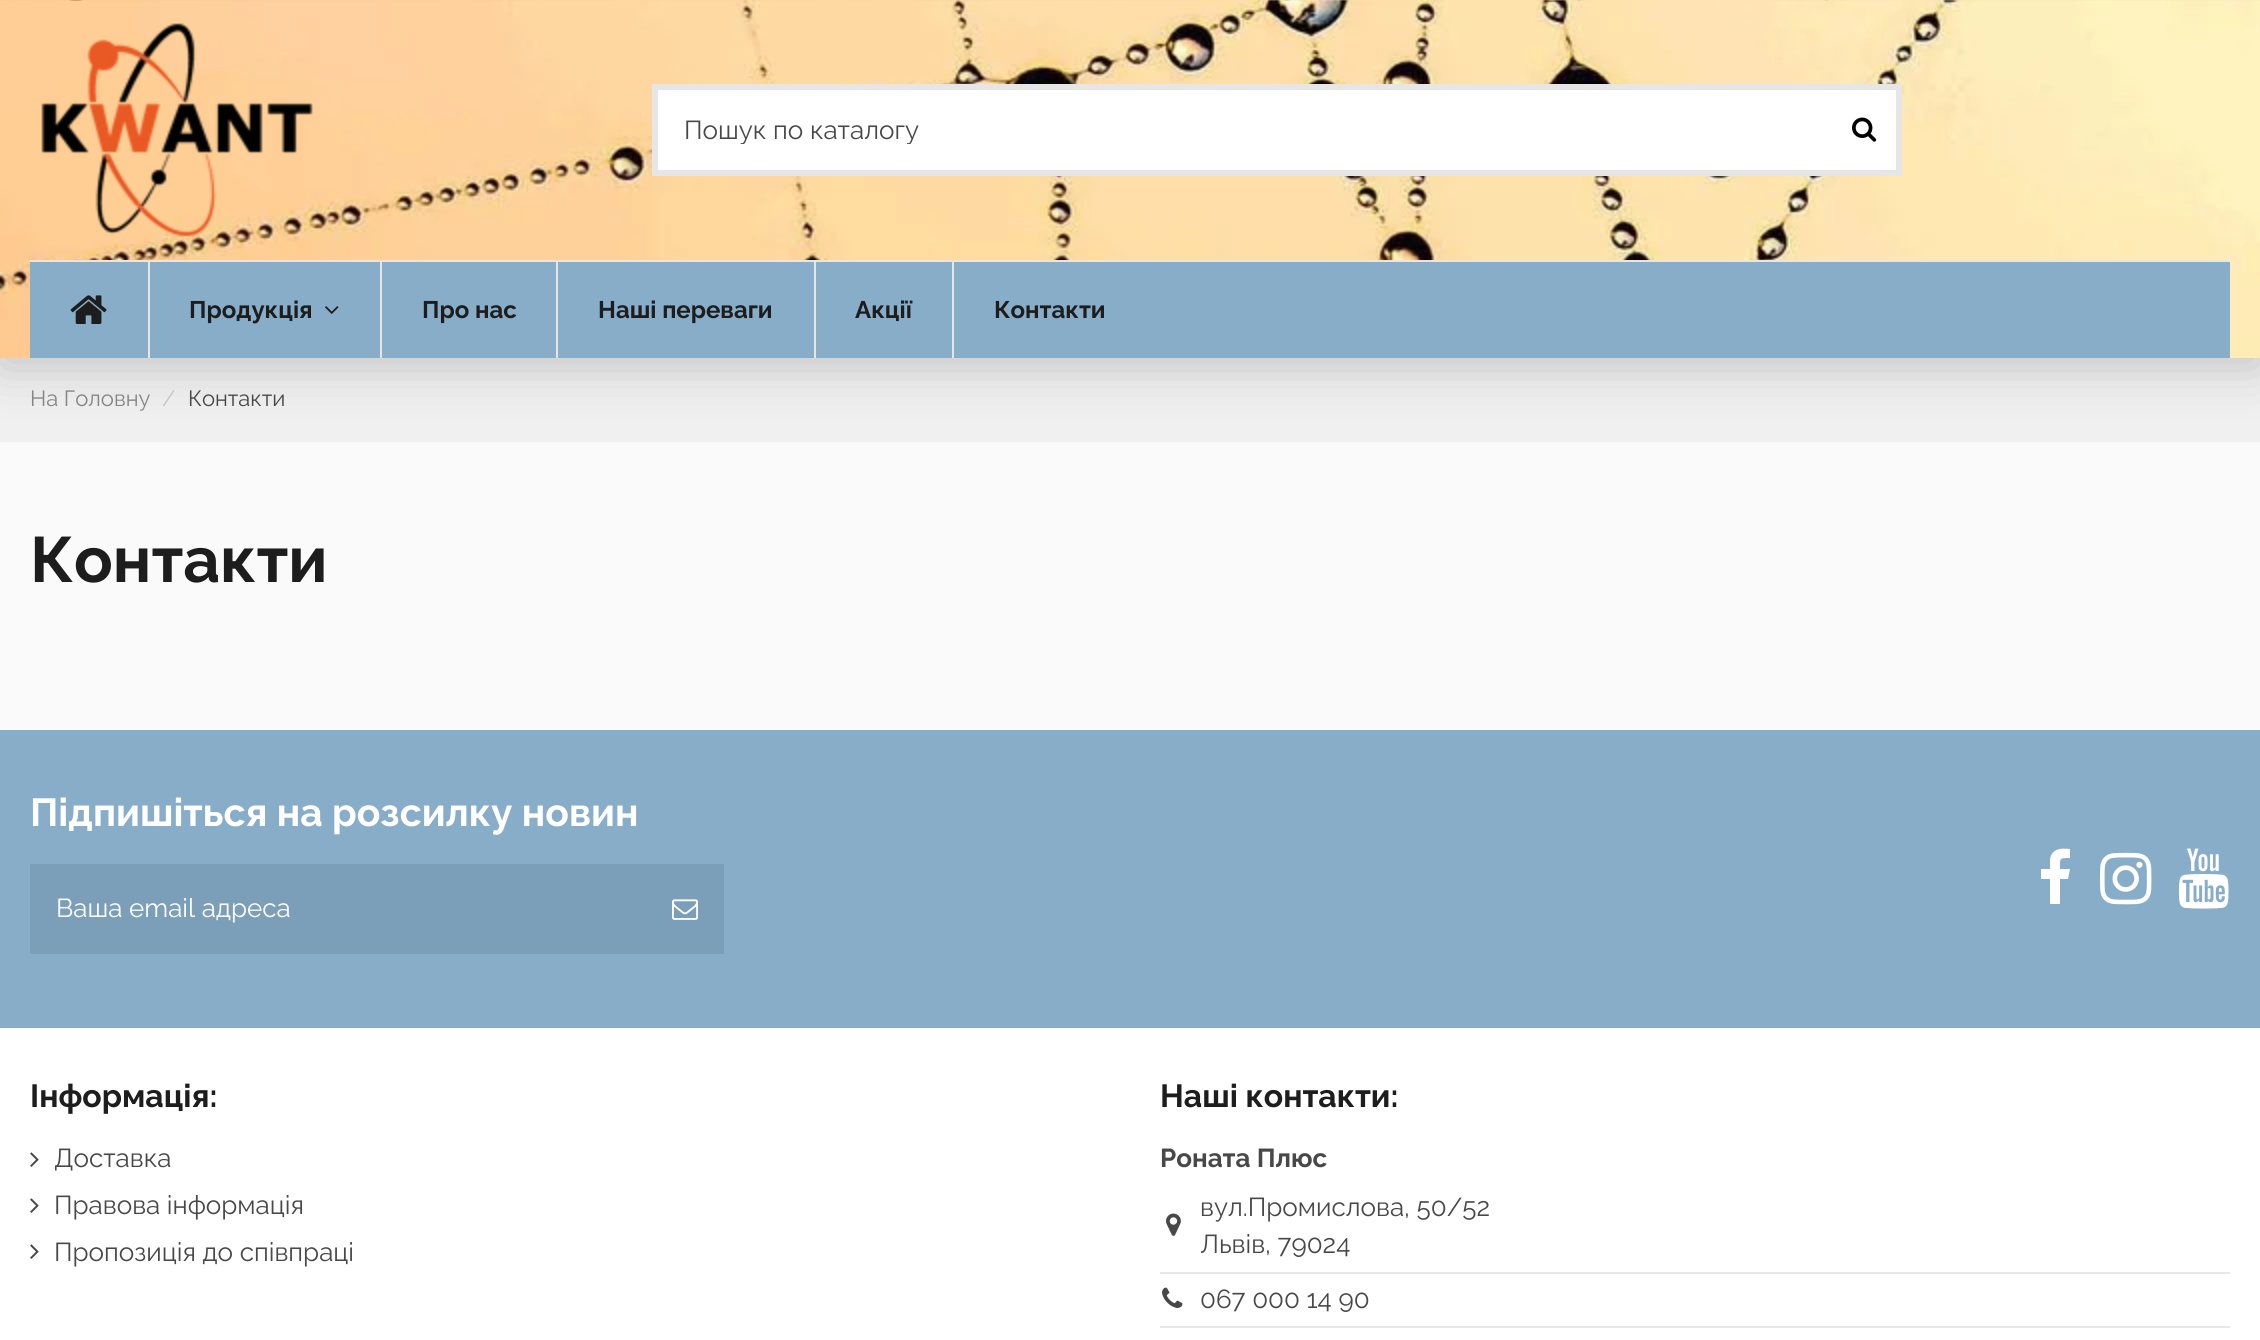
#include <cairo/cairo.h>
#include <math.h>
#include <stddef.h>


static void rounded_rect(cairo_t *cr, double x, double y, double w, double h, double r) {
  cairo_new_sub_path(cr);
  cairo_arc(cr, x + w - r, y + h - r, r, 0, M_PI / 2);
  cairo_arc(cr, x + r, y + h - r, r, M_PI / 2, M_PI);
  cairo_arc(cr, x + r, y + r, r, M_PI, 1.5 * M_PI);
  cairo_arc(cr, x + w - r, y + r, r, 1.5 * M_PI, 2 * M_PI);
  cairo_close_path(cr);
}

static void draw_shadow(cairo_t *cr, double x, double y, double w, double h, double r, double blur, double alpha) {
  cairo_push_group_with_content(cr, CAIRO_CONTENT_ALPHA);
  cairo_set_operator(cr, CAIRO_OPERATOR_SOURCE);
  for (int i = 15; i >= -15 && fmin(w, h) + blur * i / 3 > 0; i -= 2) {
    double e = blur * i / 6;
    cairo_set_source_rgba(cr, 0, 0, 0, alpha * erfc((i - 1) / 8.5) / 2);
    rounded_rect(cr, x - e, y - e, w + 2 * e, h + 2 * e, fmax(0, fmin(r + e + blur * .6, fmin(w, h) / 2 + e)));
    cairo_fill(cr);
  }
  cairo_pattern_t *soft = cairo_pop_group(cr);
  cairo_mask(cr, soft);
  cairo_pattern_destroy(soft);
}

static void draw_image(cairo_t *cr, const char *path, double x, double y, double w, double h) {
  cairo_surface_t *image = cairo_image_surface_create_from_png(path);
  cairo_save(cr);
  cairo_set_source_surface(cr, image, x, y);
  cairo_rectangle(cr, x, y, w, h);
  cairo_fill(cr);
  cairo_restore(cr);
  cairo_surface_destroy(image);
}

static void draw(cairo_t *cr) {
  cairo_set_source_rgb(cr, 250 / 255.0, 250 / 255.0, 250 / 255.0);
  cairo_paint(cr);
  cairo_set_source_rgb(cr, 240 / 255.0, 240 / 255.0, 240 / 255.0);
  cairo_rectangle(cr, 0, 358, 2260, 84);
  cairo_fill(cr);
  cairo_set_source_rgb(cr, 0, 0, 0);
  draw_shadow(cr, 0, 10, 2260, 358, 0, 25, 0.18);
  draw_image(cr, "images/1.png", 0, 0, 2260, 358);
  draw_image(cr, "images/2.png", 41, 23, 272, 214);
  cairo_set_source_rgb(cr, 1, 1, 1);
  cairo_rectangle(cr, 655, 87, 1244, 86);
  cairo_fill_preserve(cr);
  cairo_set_source_rgb(cr, 230 / 255.0, 230 / 255.0, 230 / 255.0);
  cairo_set_line_width(cr, 6);
  cairo_stroke(cr);
  draw_image(cr, "images/3.png", 1852, 117, 25, 25);
  cairo_set_source_rgb(cr, 135 / 255.0, 173 / 255.0, 201 / 255.0);
  cairo_rectangle(cr, 30, 262, 2200, 96);
  cairo_fill(cr);
  cairo_set_source_rgb(cr, 230 / 255.0, 230 / 255.0, 230 / 255.0);
  cairo_rectangle(cr, 30, 260, 2200, 2);
  cairo_fill(cr);
  draw_image(cr, "images/4.png", 70, 295, 37, 29);
  cairo_rectangle(cr, 148, 262, 2, 96);
  cairo_fill(cr);
  draw_image(cr, "images/5.png", 325, 306, 14, 8);
  cairo_rectangle(cr, 380, 262, 2, 96);
  cairo_fill(cr);
  cairo_rectangle(cr, 556, 262, 2, 96);
  cairo_fill(cr);
  cairo_rectangle(cr, 814, 262, 2, 96);
  cairo_fill(cr);
  cairo_rectangle(cr, 952, 262, 2, 96);
  cairo_fill(cr);
  cairo_set_source_rgb(cr, 1, 1, 1);
  cairo_rectangle(cr, 0, 1028, 2260, 312);
  cairo_fill(cr);
  cairo_set_source_rgb(cr, 135 / 255.0, 173 / 255.0, 201 / 255.0);
  cairo_rectangle(cr, 0, 730, 2260, 298);
  cairo_fill(cr);
  cairo_set_source_rgb(cr, 124 / 255.0, 159 / 255.0, 185 / 255.0);
  cairo_rectangle(cr, 30, 864, 694, 90);
  cairo_fill(cr);
  draw_image(cr, "images/6.png", 672, 899, 26, 21);
  cairo_set_source_rgb(cr, 1, 1, 1);
  cairo_new_path(cr);
  cairo_move_to(cr, 2070, 849);
  cairo_line_to(cr, 2070, 858);
  cairo_curve_to(cr, 2059, 858, 2060, 858, 2060, 869);
  cairo_line_to(cr, 2070, 869);
  cairo_line_to(cr, 2068, 879);
  cairo_line_to(cr, 2060, 879);
  cairo_line_to(cr, 2060, 904);
  cairo_line_to(cr, 2050, 904);
  cairo_line_to(cr, 2050, 879);
  cairo_line_to(cr, 2041, 879);
  cairo_line_to(cr, 2041, 869);
  cairo_line_to(cr, 2050, 869);
  cairo_line_to(cr, 2050, 859);
  cairo_curve_to(cr, 2052, 848, 2062, 848, 2070, 849);
  cairo_close_path(cr);
  cairo_fill(cr);
  draw_image(cr, "images/7.png", 2100, 852, 52, 53);
  draw_image(cr, "images/8.png", 2178, 848, 51, 61);
  draw_image(cr, "images/9.png", 30, 1152, 9, 15);
  draw_image(cr, "images/9.png", 30, 1198, 9, 15);
  draw_image(cr, "images/9.png", 30, 1244, 9, 15);
  draw_image(cr, "images/10.png", 1166, 1213, 15, 23);
  cairo_set_source_rgb(cr, 232 / 255.0, 232 / 255.0, 232 / 255.0);
  cairo_rectangle(cr, 1160, 1272, 1070, 2);
  cairo_fill(cr);
  draw_image(cr, "images/11.png", 1162, 1287, 21, 21);
  cairo_rectangle(cr, 1160, 1326, 1070, 2);
  cairo_fill(cr);
  cairo_save(cr);
  cairo_rectangle(cr, 684, 114, 1160, 30);
  cairo_clip(cr);
  cairo_select_font_face(cr, "Raleway", CAIRO_FONT_SLANT_NORMAL, CAIRO_FONT_WEIGHT_NORMAL);
  cairo_set_font_size(cr, 26);
  cairo_set_source_rgb(cr, 72 / 255.0, 72 / 255.0, 72 / 255.0);
  cairo_move_to(cr, 684, 139);
  cairo_show_text(cr, "Пошук по каталогу");
  cairo_restore(cr);
  cairo_select_font_face(cr, "Raleway", CAIRO_FONT_SLANT_NORMAL, CAIRO_FONT_WEIGHT_BOLD);
  cairo_set_font_size(cr, 24);
  cairo_set_source_rgb(cr, 29 / 255.0, 29 / 255.0, 29 / 255.0);
  cairo_move_to(cr, 189, 318);
  cairo_show_text(cr, "Продукція");
  cairo_move_to(cr, 422, 318);
  cairo_show_text(cr, "Про нас");
  cairo_move_to(cr, 598, 318);
  cairo_show_text(cr, "Наші переваги");
  cairo_move_to(cr, 855, 318);
  cairo_show_text(cr, "Акції");
  cairo_move_to(cr, 994, 318);
  cairo_show_text(cr, "Контакти");
  cairo_select_font_face(cr, "Raleway", CAIRO_FONT_SLANT_NORMAL, CAIRO_FONT_WEIGHT_NORMAL);
  cairo_set_font_size(cr, 22);
  cairo_set_source_rgb(cr, 133 / 255.0, 133 / 255.0, 133 / 255.0);
  cairo_move_to(cr, 30, 406);
  cairo_show_text(cr, "На Головну");
  cairo_set_source_rgb(cr, 197 / 255.0, 197 / 255.0, 197 / 255.0);
  cairo_move_to(cr, 162, 406);
  cairo_show_text(cr, "/");
  cairo_set_source_rgb(cr, 72 / 255.0, 72 / 255.0, 72 / 255.0);
  cairo_move_to(cr, 188, 406);
  cairo_show_text(cr, "Контакти");
  cairo_select_font_face(cr, "Raleway", CAIRO_FONT_SLANT_NORMAL, CAIRO_FONT_WEIGHT_BOLD);
  cairo_set_font_size(cr, 64);
  cairo_set_source_rgb(cr, 29 / 255.0, 29 / 255.0, 29 / 255.0);
  cairo_move_to(cr, 30, 582);
  cairo_show_text(cr, "Контакти");
  cairo_set_font_size(cr, 39);
  cairo_set_source_rgb(cr, 1, 1, 1);
  cairo_move_to(cr, 30, 826);
  cairo_show_text(cr, "Підпишіться на розсилку новин");
  cairo_select_font_face(cr, "Raleway", CAIRO_FONT_SLANT_NORMAL, CAIRO_FONT_WEIGHT_NORMAL);
  cairo_set_font_size(cr, 26);
  cairo_move_to(cr, 56, 917);
  cairo_show_text(cr, "Ваша email адреса");
  cairo_select_font_face(cr, "Raleway", CAIRO_FONT_SLANT_NORMAL, CAIRO_FONT_WEIGHT_BOLD);
  cairo_set_font_size(cr, 32);
  cairo_set_source_rgb(cr, 29 / 255.0, 29 / 255.0, 29 / 255.0);
  cairo_move_to(cr, 30, 1107);
  cairo_show_text(cr, "Інформація:");
  cairo_select_font_face(cr, "Raleway", CAIRO_FONT_SLANT_NORMAL, CAIRO_FONT_WEIGHT_NORMAL);
  cairo_set_font_size(cr, 26);
  cairo_set_source_rgb(cr, 72 / 255.0, 72 / 255.0, 72 / 255.0);
  cairo_move_to(cr, 54, 1167);
  cairo_show_text(cr, "Доставка");
  cairo_move_to(cr, 54, 1214);
  cairo_show_text(cr, "Правова інформація");
  cairo_move_to(cr, 54, 1261);
  cairo_show_text(cr, "Пропозиція до співпраці");
  cairo_select_font_face(cr, "Raleway", CAIRO_FONT_SLANT_NORMAL, CAIRO_FONT_WEIGHT_BOLD);
  cairo_set_font_size(cr, 32);
  cairo_set_source_rgb(cr, 29 / 255.0, 29 / 255.0, 29 / 255.0);
  cairo_move_to(cr, 1160, 1107);
  cairo_show_text(cr, "Наші контакти:");
  cairo_set_font_size(cr, 26);
  cairo_set_source_rgb(cr, 72 / 255.0, 72 / 255.0, 72 / 255.0);
  cairo_move_to(cr, 1160, 1167);
  cairo_show_text(cr, "Роната Плюс");
  cairo_select_font_face(cr, "Raleway", CAIRO_FONT_SLANT_NORMAL, CAIRO_FONT_WEIGHT_NORMAL);
  cairo_move_to(cr, 1200, 1216);
  cairo_show_text(cr, "вул.Промислова, 50/52");
  cairo_move_to(cr, 1200, 1253);
  cairo_show_text(cr, "Львів, 79024");
  cairo_move_to(cr, 1200, 1308);
  cairo_show_text(cr, "067 000 14 90");
}

int main(void) {
  cairo_surface_t *surface = cairo_image_surface_create(CAIRO_FORMAT_RGB24, 2260, 1340);
  cairo_t *cr = cairo_create(surface);
  cairo_font_options_t *options = cairo_font_options_create();
  cairo_font_options_set_hint_metrics(options, CAIRO_HINT_METRICS_OFF);
  cairo_font_options_set_hint_style(options, CAIRO_HINT_STYLE_NONE);
  cairo_set_font_options(cr, options);
  cairo_set_miter_limit(cr, 4);
  draw(cr);
  cairo_surface_write_to_png(surface, "out.png");
  cairo_font_options_destroy(options);
  cairo_destroy(cr);
  cairo_surface_destroy(surface);
  return 0;
}
